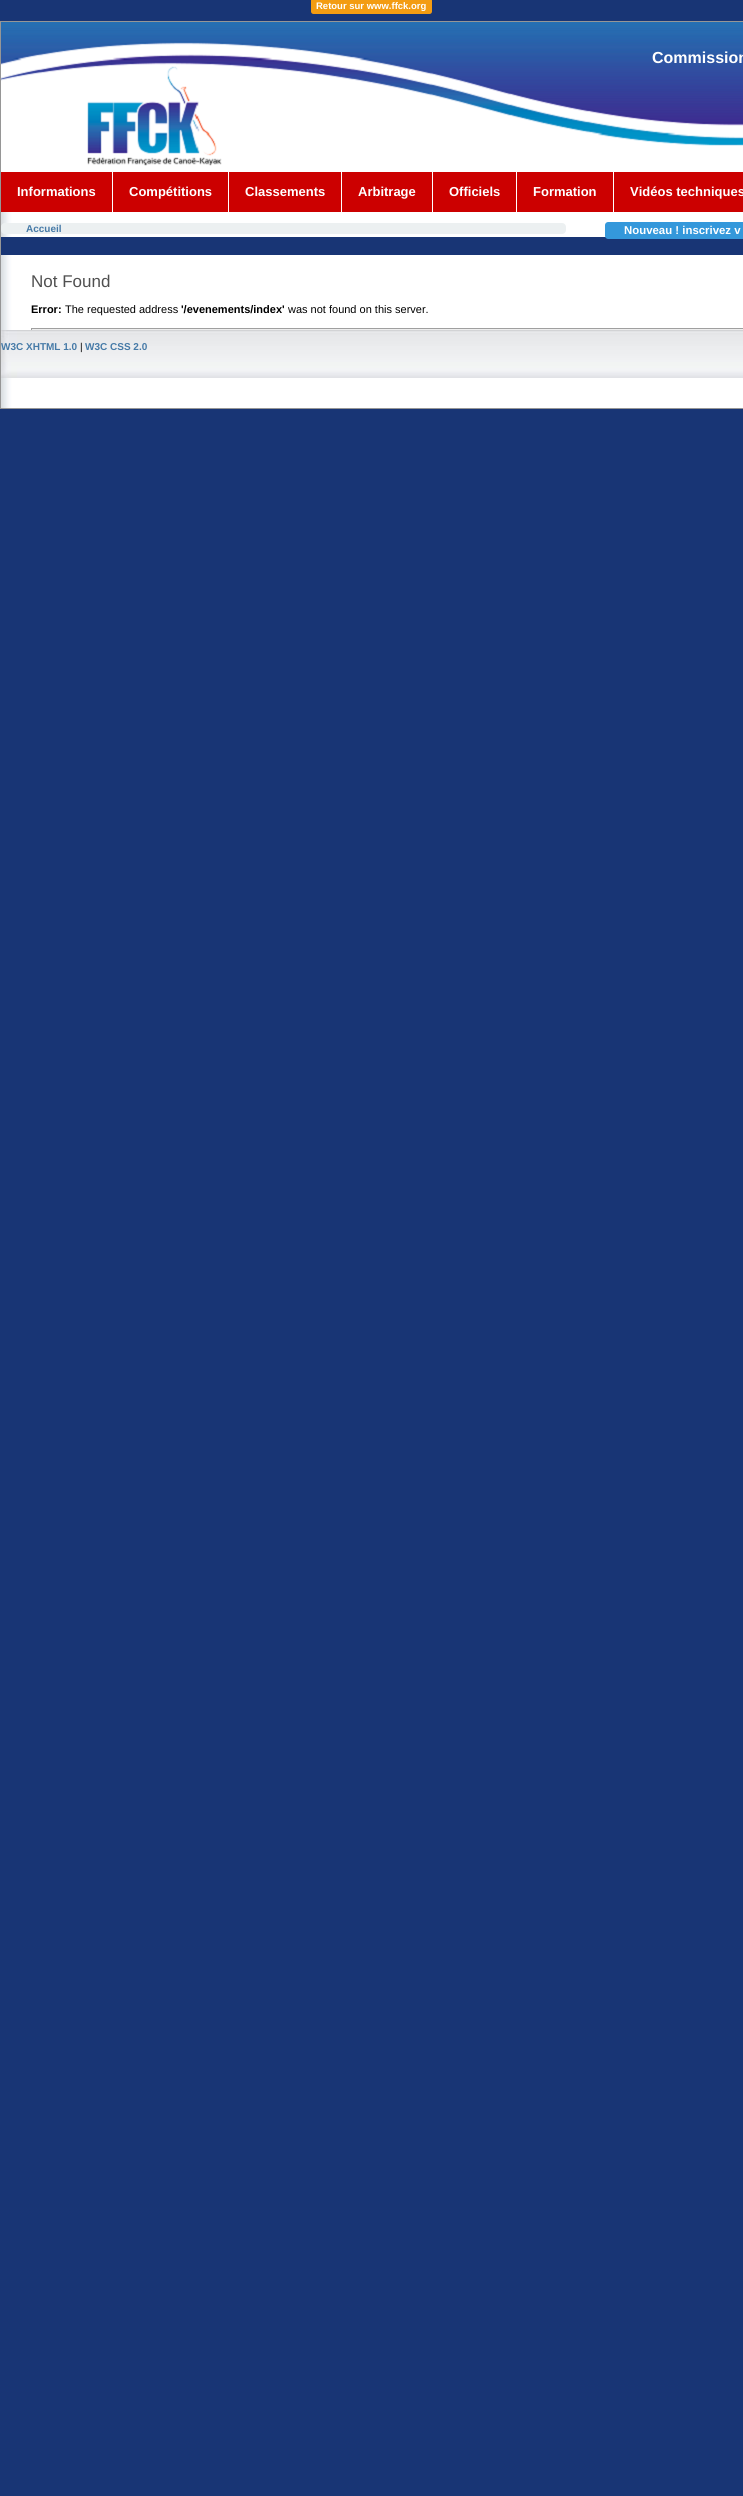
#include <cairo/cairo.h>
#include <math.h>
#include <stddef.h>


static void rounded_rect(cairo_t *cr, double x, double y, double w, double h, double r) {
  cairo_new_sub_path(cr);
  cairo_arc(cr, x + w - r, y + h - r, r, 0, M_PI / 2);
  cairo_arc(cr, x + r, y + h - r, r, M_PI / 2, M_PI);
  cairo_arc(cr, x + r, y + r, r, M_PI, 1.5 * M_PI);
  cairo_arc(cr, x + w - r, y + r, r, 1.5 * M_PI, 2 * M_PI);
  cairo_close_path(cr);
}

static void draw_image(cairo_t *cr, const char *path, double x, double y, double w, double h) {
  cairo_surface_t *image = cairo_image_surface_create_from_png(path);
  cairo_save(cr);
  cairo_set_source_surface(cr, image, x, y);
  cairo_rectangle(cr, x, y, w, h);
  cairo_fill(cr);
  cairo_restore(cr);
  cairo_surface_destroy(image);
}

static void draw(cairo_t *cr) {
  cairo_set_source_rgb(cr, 24 / 255.0, 53 / 255.0, 117 / 255.0);
  cairo_paint(cr);
  cairo_set_source_rgb(cr, 243 / 255.0, 156 / 255.0, 18 / 255.0);
  rounded_rect(cr, 311, -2, 121, 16, 2.5);
  cairo_fill(cr);
  cairo_rectangle(cr, 0.5, 21.5, 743, 387);
  cairo_set_source_rgb(cr, 150 / 255.0, 150 / 255.0, 150 / 255.0);
  cairo_set_line_width(cr, 1);
  cairo_stroke(cr);
  draw_image(cr, "images/1.png", 1, 22, 742, 150);
  cairo_set_source_rgb(cr, 204 / 255.0, 0, 0);
  cairo_rectangle(cr, 1, 172, 742, 40);
  cairo_fill(cr);
  cairo_set_source_rgb(cr, 1, 1, 1);
  cairo_rectangle(cr, 112, 172, 1, 40);
  cairo_fill(cr);
  cairo_rectangle(cr, 228, 172, 1, 40);
  cairo_fill(cr);
  cairo_rectangle(cr, 341, 172, 1, 40);
  cairo_fill(cr);
  cairo_rectangle(cr, 432, 172, 1, 40);
  cairo_fill(cr);
  cairo_rectangle(cr, 516, 172, 1, 40);
  cairo_fill(cr);
  cairo_rectangle(cr, 613, 172, 1, 40);
  cairo_fill(cr);
  draw_image(cr, "images/2.png", 1, 212, 742, 25);
  cairo_set_source_rgb(cr, 236 / 255.0, 240 / 255.0, 241 / 255.0);
  rounded_rect(cr, 1, 223, 565, 11, 4);
  cairo_fill(cr);
  cairo_set_source_rgb(cr, 52 / 255.0, 152 / 255.0, 219 / 255.0);
  cairo_new_path(cr);
  cairo_move_to(cr, 608, 222);
  cairo_line_to(cr, 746, 222);
  cairo_line_to(cr, 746, 239);
  cairo_line_to(cr, 608, 239);
  cairo_curve_to(cr, 606.5, 239, 605, 237.5, 605, 236);
  cairo_line_to(cr, 605, 225);
  cairo_curve_to(cr, 605, 223.5, 606.5, 222, 608, 222);
  cairo_close_path(cr);
  cairo_fill(cr);
  draw_image(cr, "images/3.png", 1, 255, 742, 153);
  cairo_set_source_rgb(cr, 159 / 255.0, 159 / 255.0, 159 / 255.0);
  cairo_rectangle(cr, 31, 328, 712, 1);
  cairo_fill(cr);
  cairo_set_source_rgb(cr, 238 / 255.0, 238 / 255.0, 238 / 255.0);
  cairo_rectangle(cr, 31, 329, 712, 1);
  cairo_fill(cr);
  cairo_set_source_rgb(cr, 159 / 255.0, 159 / 255.0, 159 / 255.0);
  cairo_rectangle(cr, 31, 328, 1, 2);
  cairo_fill(cr);
  draw_image(cr, "images/4.png", 1, 330, 742, 48);
  cairo_select_font_face(cr, "Liberation Sans", CAIRO_FONT_SLANT_NORMAL, CAIRO_FONT_WEIGHT_BOLD);
  cairo_set_font_size(cr, 9.5);
  cairo_set_source_rgb(cr, 1, 1, 1);
  cairo_move_to(cr, 316, 9);
  cairo_show_text(cr, "Retour sur www.ffck.org");
  cairo_set_font_size(cr, 16);
  cairo_move_to(cr, 652, 63);
  cairo_show_text(cr, "Commission");
  cairo_set_font_size(cr, 13);
  cairo_move_to(cr, 17, 196);
  cairo_show_text(cr, "Informations");
  cairo_move_to(cr, 129, 196);
  cairo_show_text(cr, "Compétitions");
  cairo_move_to(cr, 245, 196);
  cairo_show_text(cr, "Classements");
  cairo_move_to(cr, 358, 196);
  cairo_show_text(cr, "Arbitrage");
  cairo_move_to(cr, 449, 196);
  cairo_show_text(cr, "Officiels");
  cairo_move_to(cr, 533, 196);
  cairo_show_text(cr, "Formation");
  cairo_move_to(cr, 630, 196);
  cairo_show_text(cr, "Vidéos techniques");
  cairo_set_font_size(cr, 10);
  cairo_set_source_rgb(cr, 70 / 255.0, 122 / 255.0, 167 / 255.0);
  cairo_move_to(cr, 26, 232);
  cairo_show_text(cr, "Accueil");
  cairo_set_font_size(cr, 11.4);
  cairo_set_source_rgb(cr, 1, 1, 1);
  cairo_move_to(cr, 624, 234);
  cairo_show_text(cr, "Nouveau ! inscrivez v");
  cairo_select_font_face(cr, "Liberation Sans", CAIRO_FONT_SLANT_NORMAL, CAIRO_FONT_WEIGHT_NORMAL);
  cairo_set_font_size(cr, 17);
  cairo_set_source_rgb(cr, 80 / 255.0, 80 / 255.0, 80 / 255.0);
  cairo_move_to(cr, 31, 287);
  cairo_show_text(cr, "Not Found");
  cairo_select_font_face(cr, "Liberation Sans", CAIRO_FONT_SLANT_NORMAL, CAIRO_FONT_WEIGHT_BOLD);
  cairo_set_font_size(cr, 11);
  cairo_set_source_rgb(cr, 0, 0, 0);
  cairo_move_to(cr, 31, 313);
  cairo_show_text(cr, "Error:");
  cairo_select_font_face(cr, "Liberation Sans", CAIRO_FONT_SLANT_NORMAL, CAIRO_FONT_WEIGHT_NORMAL);
  cairo_move_to(cr, 65, 313);
  cairo_show_text(cr, "The requested address");
  cairo_select_font_face(cr, "Liberation Sans", CAIRO_FONT_SLANT_NORMAL, CAIRO_FONT_WEIGHT_BOLD);
  cairo_move_to(cr, 181, 313);
  cairo_show_text(cr, "'/evenements/index'");
  cairo_select_font_face(cr, "Liberation Sans", CAIRO_FONT_SLANT_NORMAL, CAIRO_FONT_WEIGHT_NORMAL);
  cairo_move_to(cr, 288, 313);
  cairo_show_text(cr, "was not found on this server.");
  cairo_select_font_face(cr, "Liberation Sans", CAIRO_FONT_SLANT_NORMAL, CAIRO_FONT_WEIGHT_BOLD);
  cairo_set_font_size(cr, 10);
  cairo_set_source_rgb(cr, 70 / 255.0, 122 / 255.0, 167 / 255.0);
  cairo_move_to(cr, 1, 350);
  cairo_show_text(cr, "W3C XHTML 1.0");
  cairo_select_font_face(cr, "Liberation Sans", CAIRO_FONT_SLANT_NORMAL, CAIRO_FONT_WEIGHT_NORMAL);
  cairo_set_source_rgb(cr, 0, 0, 0);
  cairo_move_to(cr, 80, 350);
  cairo_show_text(cr, "|");
  cairo_select_font_face(cr, "Liberation Sans", CAIRO_FONT_SLANT_NORMAL, CAIRO_FONT_WEIGHT_BOLD);
  cairo_set_source_rgb(cr, 70 / 255.0, 122 / 255.0, 167 / 255.0);
  cairo_move_to(cr, 85, 350);
  cairo_show_text(cr, "W3C CSS 2.0");
}

int main(void) {
  cairo_surface_t *surface = cairo_image_surface_create(CAIRO_FORMAT_RGB24, 743, 2496);
  cairo_t *cr = cairo_create(surface);
  cairo_font_options_t *options = cairo_font_options_create();
  cairo_font_options_set_hint_metrics(options, CAIRO_HINT_METRICS_OFF);
  cairo_font_options_set_hint_style(options, CAIRO_HINT_STYLE_NONE);
  cairo_set_font_options(cr, options);
  cairo_set_miter_limit(cr, 4);
  draw(cr);
  cairo_surface_write_to_png(surface, "out.png");
  cairo_font_options_destroy(options);
  cairo_destroy(cr);
  cairo_surface_destroy(surface);
  return 0;
}
